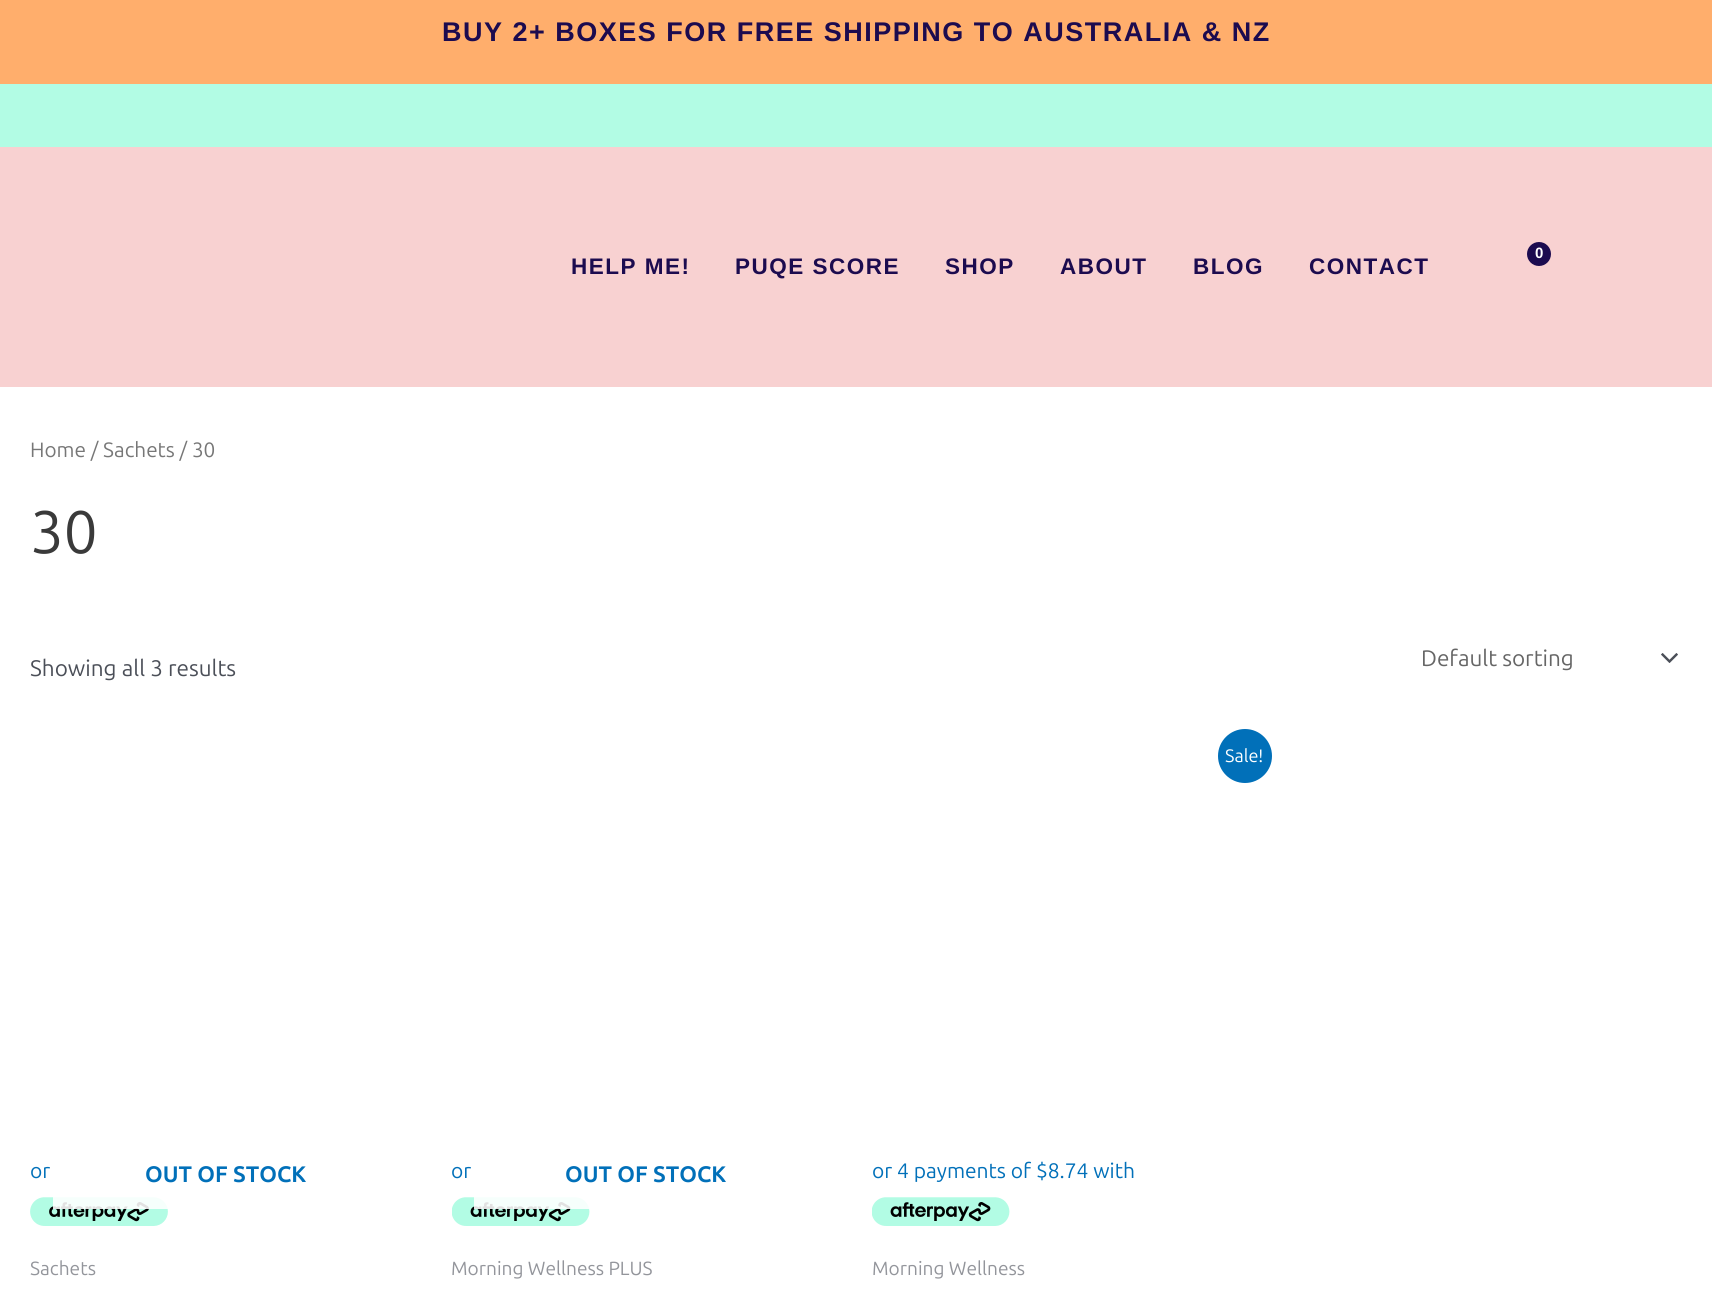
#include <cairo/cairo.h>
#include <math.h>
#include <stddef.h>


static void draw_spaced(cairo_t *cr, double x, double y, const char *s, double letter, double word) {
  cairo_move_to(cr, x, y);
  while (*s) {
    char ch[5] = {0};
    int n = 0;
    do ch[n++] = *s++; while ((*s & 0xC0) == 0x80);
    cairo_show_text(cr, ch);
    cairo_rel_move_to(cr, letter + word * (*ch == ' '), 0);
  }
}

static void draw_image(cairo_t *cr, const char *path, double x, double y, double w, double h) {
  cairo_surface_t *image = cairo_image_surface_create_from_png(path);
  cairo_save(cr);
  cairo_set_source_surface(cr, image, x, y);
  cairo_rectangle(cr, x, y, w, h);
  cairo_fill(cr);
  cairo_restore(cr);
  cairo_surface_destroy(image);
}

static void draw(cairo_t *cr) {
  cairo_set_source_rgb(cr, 1, 1, 1);
  cairo_paint(cr);
  cairo_set_source_rgb(cr, 1, 174 / 255.0, 108 / 255.0);
  cairo_rectangle(cr, 0, 0, 1712, 84);
  cairo_fill(cr);
  cairo_set_source_rgb(cr, 178 / 255.0, 252 / 255.0, 228 / 255.0);
  cairo_rectangle(cr, 0, 84, 1712, 63);
  cairo_fill(cr);
  cairo_set_source_rgb(cr, 248 / 255.0, 209 / 255.0, 209 / 255.0);
  cairo_rectangle(cr, 0, 147, 1712, 240);
  cairo_fill(cr);
  cairo_set_source_rgb(cr, 28 / 255.0, 11 / 255.0, 79 / 255.0);
  cairo_arc(cr, 1539, 254, 12, 0, 2 * M_PI);
  cairo_fill(cr);
  draw_image(cr, "images/1.png", 1661, 653, 17, 10);
  draw_image(cr, "images/2.png", 30, 1197, 138, 29);
  cairo_set_source_rgba(cr, 1, 1, 1, 0.88);
  cairo_rectangle(cr, 53, 1197, 115, 12);
  cairo_fill(cr);
  draw_image(cr, "images/3.png", 452, 1197, 138, 29);
  cairo_rectangle(cr, 474, 1197, 116, 12);
  cairo_fill(cr);
  cairo_set_source_rgb(cr, 1 / 255.0, 112 / 255.0, 185 / 255.0);
  cairo_arc(cr, 1245, 756, 27, 0, 2 * M_PI);
  cairo_fill(cr);
  draw_image(cr, "images/3.png", 872, 1197, 138, 29);
  cairo_select_font_face(cr, "Liberation Sans", CAIRO_FONT_SLANT_NORMAL, CAIRO_FONT_WEIGHT_BOLD);
  cairo_set_font_size(cr, 27);
  cairo_set_source_rgb(cr, 28 / 255.0, 11 / 255.0, 79 / 255.0);
  draw_spaced(cr, 442, 41, "BUY 2+ BOXES FOR FREE SHIPPING TO AUSTRALIA & NZ", 1.5, 0);
  cairo_set_font_size(cr, 15);
  cairo_set_source_rgb(cr, 1, 1, 1);
  cairo_move_to(cr, 1535, 258);
  cairo_show_text(cr, "0");
  cairo_set_font_size(cr, 22.5);
  cairo_set_source_rgb(cr, 28 / 255.0, 11 / 255.0, 79 / 255.0);
  draw_spaced(cr, 571, 274, "HELP ME!", 1.5, 0);
  draw_spaced(cr, 735, 274, "PUQE SCORE", 1.5, 0);
  draw_spaced(cr, 945, 274, "SHOP", 1.5, 0);
  draw_spaced(cr, 1060, 274, "ABOUT", 1.5, 0);
  draw_spaced(cr, 1193, 274, "BLOG", 1.5, 0);
  draw_spaced(cr, 1309, 274, "CONTACT", 1.5, 0);
  cairo_select_font_face(cr, "Ubuntu", CAIRO_FONT_SLANT_NORMAL, CAIRO_FONT_WEIGHT_NORMAL);
  cairo_set_font_size(cr, 20.75);
  cairo_set_source_rgb(cr, 119 / 255.0, 119 / 255.0, 119 / 255.0);
  cairo_move_to(cr, 30, 457);
  cairo_show_text(cr, "Home / Sachets / 30");
  cairo_set_font_size(cr, 60);
  cairo_set_source_rgb(cr, 58 / 255.0, 58 / 255.0, 58 / 255.0);
  cairo_move_to(cr, 30, 553);
  cairo_show_text(cr, "30");
  cairo_set_font_size(cr, 22.5);
  cairo_set_source_rgb(cr, 75 / 255.0, 79 / 255.0, 88 / 255.0);
  cairo_move_to(cr, 30, 676);
  cairo_show_text(cr, "Showing all 3 results");
  cairo_set_source_rgb(cr, 102 / 255.0, 102 / 255.0, 102 / 255.0);
  cairo_move_to(cr, 1421, 666);
  cairo_show_text(cr, "Default sorting");
  cairo_set_font_size(cr, 21);
  cairo_set_source_rgb(cr, 1 / 255.0, 112 / 255.0, 185 / 255.0);
  cairo_move_to(cr, 30, 1178);
  cairo_show_text(cr, "or");
  cairo_select_font_face(cr, "Ubuntu", CAIRO_FONT_SLANT_NORMAL, CAIRO_FONT_WEIGHT_BOLD);
  cairo_set_font_size(cr, 22.5);
  cairo_move_to(cr, 145, 1182);
  cairo_show_text(cr, "OUT OF STOCK");
  cairo_select_font_face(cr, "Ubuntu", CAIRO_FONT_SLANT_NORMAL, CAIRO_FONT_WEIGHT_NORMAL);
  cairo_set_font_size(cr, 19.1);
  cairo_set_source_rgb(cr, 147 / 255.0, 149 / 255.0, 155 / 255.0);
  cairo_move_to(cr, 30, 1275);
  cairo_show_text(cr, "Sachets");
  cairo_set_font_size(cr, 21);
  cairo_set_source_rgb(cr, 1 / 255.0, 112 / 255.0, 185 / 255.0);
  cairo_move_to(cr, 451, 1178);
  cairo_show_text(cr, "or");
  cairo_select_font_face(cr, "Ubuntu", CAIRO_FONT_SLANT_NORMAL, CAIRO_FONT_WEIGHT_BOLD);
  cairo_set_font_size(cr, 22.5);
  cairo_move_to(cr, 565, 1182);
  cairo_show_text(cr, "OUT OF STOCK");
  cairo_select_font_face(cr, "Ubuntu", CAIRO_FONT_SLANT_NORMAL, CAIRO_FONT_WEIGHT_NORMAL);
  cairo_set_font_size(cr, 19.1);
  cairo_set_source_rgb(cr, 147 / 255.0, 149 / 255.0, 155 / 255.0);
  cairo_move_to(cr, 451, 1275);
  cairo_show_text(cr, "Morning Wellness PLUS");
  cairo_set_font_size(cr, 18);
  cairo_set_source_rgb(cr, 1, 1, 1);
  cairo_move_to(cr, 1225, 762);
  cairo_show_text(cr, "Sale!");
  cairo_set_font_size(cr, 21);
  cairo_set_source_rgb(cr, 1 / 255.0, 112 / 255.0, 185 / 255.0);
  cairo_move_to(cr, 872, 1178);
  cairo_show_text(cr, "or 4 payments of $8.74 with");
  cairo_set_font_size(cr, 19.1);
  cairo_set_source_rgb(cr, 147 / 255.0, 149 / 255.0, 155 / 255.0);
  cairo_move_to(cr, 872, 1275);
  cairo_show_text(cr, "Morning Wellness");
}

int main(void) {
  cairo_surface_t *surface = cairo_image_surface_create(CAIRO_FORMAT_RGB24, 1712, 1294);
  cairo_t *cr = cairo_create(surface);
  cairo_font_options_t *options = cairo_font_options_create();
  cairo_font_options_set_hint_metrics(options, CAIRO_HINT_METRICS_OFF);
  cairo_font_options_set_hint_style(options, CAIRO_HINT_STYLE_NONE);
  cairo_set_font_options(cr, options);
  cairo_set_miter_limit(cr, 4);
  draw(cr);
  cairo_surface_write_to_png(surface, "out.png");
  cairo_font_options_destroy(options);
  cairo_destroy(cr);
  cairo_surface_destroy(surface);
  return 0;
}
